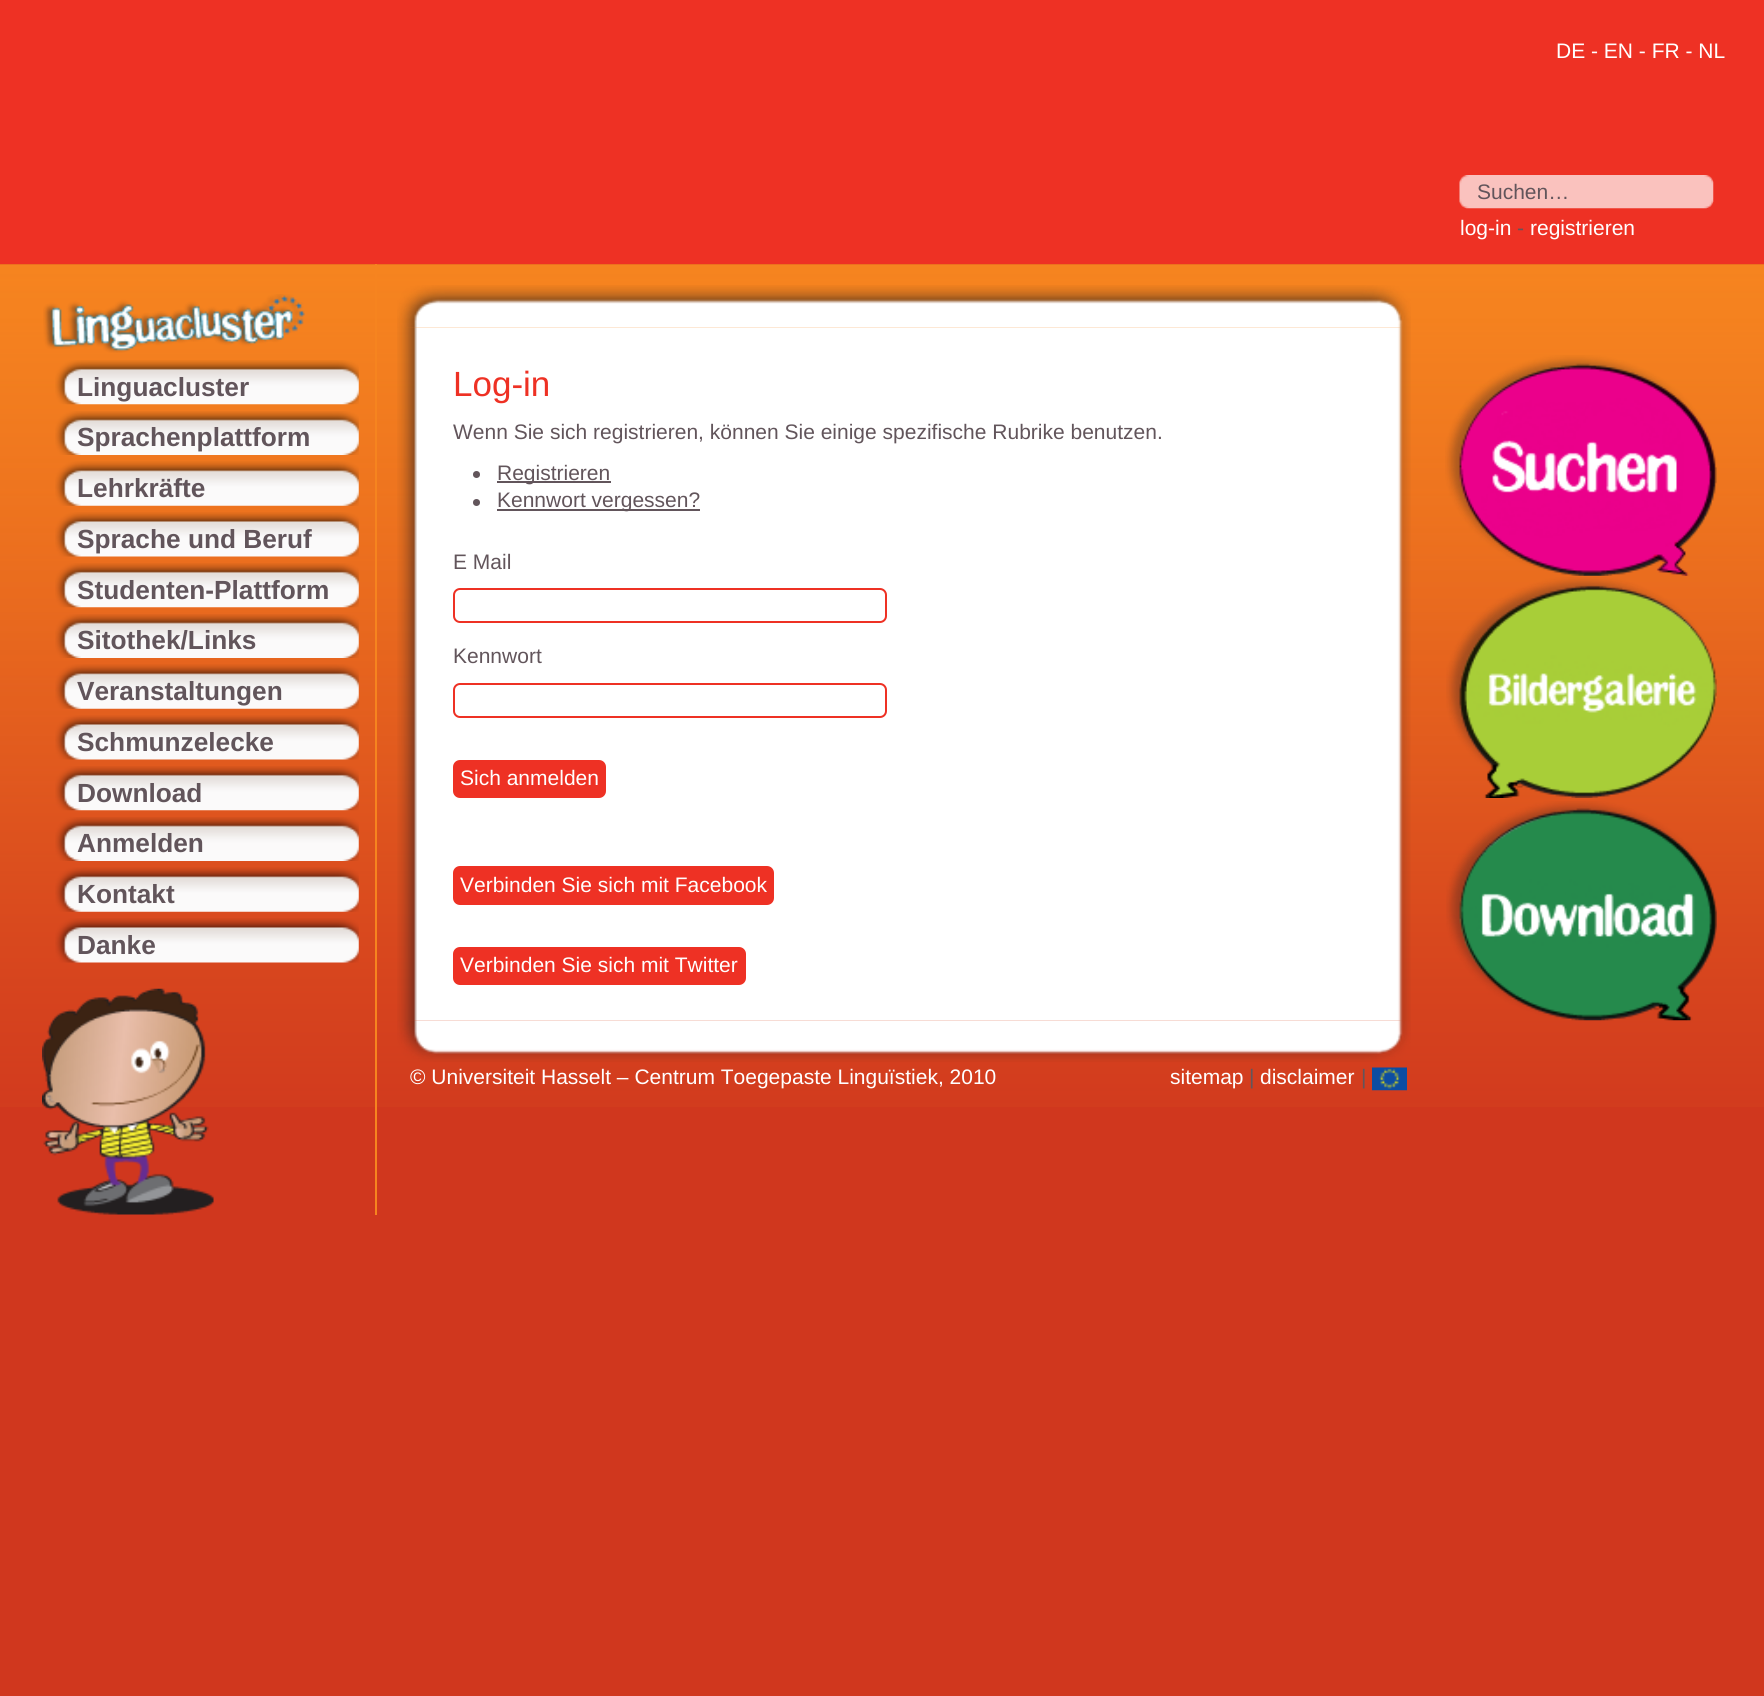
#include <cairo/cairo.h>
#include <math.h>
#include <stddef.h>


static void rounded_rect(cairo_t *cr, double x, double y, double w, double h, double r) {
  cairo_new_sub_path(cr);
  cairo_arc(cr, x + w - r, y + h - r, r, 0, M_PI / 2);
  cairo_arc(cr, x + r, y + h - r, r, M_PI / 2, M_PI);
  cairo_arc(cr, x + r, y + r, r, M_PI, 1.5 * M_PI);
  cairo_arc(cr, x + w - r, y + r, r, 1.5 * M_PI, 2 * M_PI);
  cairo_close_path(cr);
}

static void draw_image(cairo_t *cr, const char *path, double x, double y, double w, double h) {
  cairo_surface_t *image = cairo_image_surface_create_from_png(path);
  cairo_save(cr);
  cairo_set_source_surface(cr, image, x, y);
  cairo_rectangle(cr, x, y, w, h);
  cairo_fill(cr);
  cairo_restore(cr);
  cairo_surface_destroy(image);
}

static void draw(cairo_t *cr) {
  cairo_set_source_rgb(cr, 208 / 255.0, 55 / 255.0, 30 / 255.0);
  cairo_paint(cr);
  draw_image(cr, "images/1.png", 0, 264, 1764, 843);
  cairo_set_source_rgb(cr, 238 / 255.0, 49 / 255.0, 36 / 255.0);
  cairo_rectangle(cr, 0, 0, 1764, 264);
  cairo_fill(cr);
  draw_image(cr, "images/2.png", 1459, 175, 255, 34);
  draw_image(cr, "images/3.png", 397, 285, 1014, 43);
  cairo_set_source_rgb(cr, 246 / 255.0, 132 / 255.0, 31 / 255.0);
  cairo_rectangle(cr, 375, 264, 2, 951);
  cairo_fill(cr);
  draw_image(cr, "images/4.png", 43, 294, 262, 59);
  draw_image(cr, "images/5.png", 55, 360, 304, 45);
  draw_image(cr, "images/6.png", 55, 411, 304, 44);
  draw_image(cr, "images/7.png", 55, 461, 304, 45);
  draw_image(cr, "images/8.png", 55, 512, 304, 45);
  draw_image(cr, "images/9.png", 55, 563, 304, 45);
  draw_image(cr, "images/10.png", 55, 614, 304, 44);
  draw_image(cr, "images/11.png", 55, 664, 304, 45);
  draw_image(cr, "images/12.png", 55, 715, 304, 45);
  draw_image(cr, "images/13.png", 55, 766, 304, 45);
  draw_image(cr, "images/14.png", 55, 817, 304, 44);
  draw_image(cr, "images/15.png", 55, 867, 304, 45);
  draw_image(cr, "images/16.png", 55, 918, 304, 45);
  draw_image(cr, "images/17.png", 42, 988, 172, 227);
  draw_image(cr, "images/18.png", 397, 327, 1014, 694);
  cairo_set_source_rgb(cr, 98 / 255.0, 85 / 255.0, 91 / 255.0);
  cairo_arc(cr, 476.5, 474.5, 3.5, 0, 2 * M_PI);
  cairo_fill(cr);
  cairo_rectangle(cr, 497, 481, 114, 2);
  cairo_fill(cr);
  cairo_arc(cr, 476.5, 502.5, 3.5, 0, 2 * M_PI);
  cairo_fill(cr);
  cairo_rectangle(cr, 497, 509, 203, 2);
  cairo_fill(cr);
  rounded_rect(cr, 454, 589, 432, 33, 6);
  cairo_set_source_rgb(cr, 238 / 255.0, 49 / 255.0, 36 / 255.0);
  cairo_stroke(cr);
  rounded_rect(cr, 454, 684, 432, 33, 6);
  cairo_stroke(cr);
  rounded_rect(cr, 453, 760, 153, 38, 7);
  cairo_fill(cr);
  rounded_rect(cr, 453, 866, 321, 39, 7);
  cairo_fill(cr);
  rounded_rect(cr, 453, 947, 293, 38, 7);
  cairo_fill(cr);
  draw_image(cr, "images/19.png", 1445, 355, 272, 221);
  draw_image(cr, "images/20.png", 1446, 577, 271, 221);
  draw_image(cr, "images/21.png", 1446, 801, 271, 220);
  draw_image(cr, "images/22.png", 397, 1020, 1014, 42);
  draw_image(cr, "images/23.png", 1372, 1067, 35, 24);
  cairo_select_font_face(cr, "Liberation Sans", CAIRO_FONT_SLANT_NORMAL, CAIRO_FONT_WEIGHT_NORMAL);
  cairo_set_font_size(cr, 21);
  cairo_set_source_rgb(cr, 1, 1, 1);
  cairo_move_to(cr, 1556, 58);
  cairo_show_text(cr, "DE - EN - FR - NL");
  cairo_set_source_rgb(cr, 98 / 255.0, 85 / 255.0, 91 / 255.0);
  cairo_move_to(cr, 1477, 199);
  cairo_show_text(cr, "Suchen…");
  cairo_set_source_rgb(cr, 1, 1, 1);
  cairo_move_to(cr, 1460, 235);
  cairo_show_text(cr, "log-in");
  cairo_set_source_rgb(cr, 98 / 255.0, 85 / 255.0, 91 / 255.0);
  cairo_move_to(cr, 1517, 235);
  cairo_show_text(cr, "-");
  cairo_set_source_rgb(cr, 1, 1, 1);
  cairo_move_to(cr, 1530, 235);
  cairo_show_text(cr, "registrieren");
  cairo_select_font_face(cr, "Liberation Sans", CAIRO_FONT_SLANT_NORMAL, CAIRO_FONT_WEIGHT_BOLD);
  cairo_set_font_size(cr, 26.25);
  cairo_set_source_rgb(cr, 98 / 255.0, 85 / 255.0, 91 / 255.0);
  cairo_move_to(cr, 77, 396);
  cairo_show_text(cr, "Linguacluster");
  cairo_move_to(cr, 77, 446);
  cairo_show_text(cr, "Sprachenplattform");
  cairo_move_to(cr, 77, 497);
  cairo_show_text(cr, "Lehrkräfte");
  cairo_move_to(cr, 77, 548);
  cairo_show_text(cr, "Sprache und Beruf");
  cairo_move_to(cr, 77, 599);
  cairo_show_text(cr, "Studenten-Plattform");
  cairo_move_to(cr, 77, 649);
  cairo_show_text(cr, "Sitothek/Links");
  cairo_move_to(cr, 77, 700);
  cairo_show_text(cr, "Veranstaltungen");
  cairo_move_to(cr, 77, 751);
  cairo_show_text(cr, "Schmunzelecke");
  cairo_move_to(cr, 77, 802);
  cairo_show_text(cr, "Download");
  cairo_move_to(cr, 77, 852);
  cairo_show_text(cr, "Anmelden");
  cairo_move_to(cr, 77, 903);
  cairo_show_text(cr, "Kontakt");
  cairo_move_to(cr, 77, 954);
  cairo_show_text(cr, "Danke");
  cairo_select_font_face(cr, "Liberation Sans", CAIRO_FONT_SLANT_NORMAL, CAIRO_FONT_WEIGHT_NORMAL);
  cairo_set_font_size(cr, 35);
  cairo_set_source_rgb(cr, 238 / 255.0, 49 / 255.0, 36 / 255.0);
  cairo_move_to(cr, 453, 396);
  cairo_show_text(cr, "Log-in");
  cairo_set_font_size(cr, 21);
  cairo_set_source_rgb(cr, 98 / 255.0, 85 / 255.0, 91 / 255.0);
  cairo_move_to(cr, 453, 439);
  cairo_show_text(cr, "Wenn Sie sich registrieren, können Sie einige spezifische Rubrike benutzen.");
  cairo_move_to(cr, 497, 480);
  cairo_show_text(cr, "Registrieren");
  cairo_move_to(cr, 497, 507);
  cairo_show_text(cr, "Kennwort vergessen?");
  cairo_move_to(cr, 453, 569);
  cairo_show_text(cr, "E Mail");
  cairo_move_to(cr, 453, 663);
  cairo_show_text(cr, "Kennwort");
  cairo_set_source_rgb(cr, 1, 1, 1);
  cairo_move_to(cr, 460, 785);
  cairo_show_text(cr, "Sich anmelden");
  cairo_move_to(cr, 460, 892);
  cairo_show_text(cr, "Verbinden Sie sich mit Facebook");
  cairo_move_to(cr, 460, 972);
  cairo_show_text(cr, "Verbinden Sie sich mit Twitter");
  cairo_move_to(cr, 410, 1084);
  cairo_show_text(cr, "© Universiteit Hasselt – Centrum Toegepaste Linguïstiek, 2010");
  cairo_move_to(cr, 1170, 1084);
  cairo_show_text(cr, "sitemap");
  cairo_set_source_rgb(cr, 98 / 255.0, 85 / 255.0, 91 / 255.0);
  cairo_move_to(cr, 1249, 1084);
  cairo_show_text(cr, "|");
  cairo_set_source_rgb(cr, 1, 1, 1);
  cairo_move_to(cr, 1260, 1084);
  cairo_show_text(cr, "disclaimer");
  cairo_set_source_rgb(cr, 98 / 255.0, 85 / 255.0, 91 / 255.0);
  cairo_move_to(cr, 1361, 1084);
  cairo_show_text(cr, "|");
}

int main(void) {
  cairo_surface_t *surface = cairo_image_surface_create(CAIRO_FORMAT_RGB24, 1764, 1696);
  cairo_t *cr = cairo_create(surface);
  cairo_font_options_t *options = cairo_font_options_create();
  cairo_font_options_set_hint_metrics(options, CAIRO_HINT_METRICS_OFF);
  cairo_font_options_set_hint_style(options, CAIRO_HINT_STYLE_NONE);
  cairo_set_font_options(cr, options);
  cairo_set_miter_limit(cr, 4);
  draw(cr);
  cairo_surface_write_to_png(surface, "out.png");
  cairo_font_options_destroy(options);
  cairo_destroy(cr);
  cairo_surface_destroy(surface);
  return 0;
}
